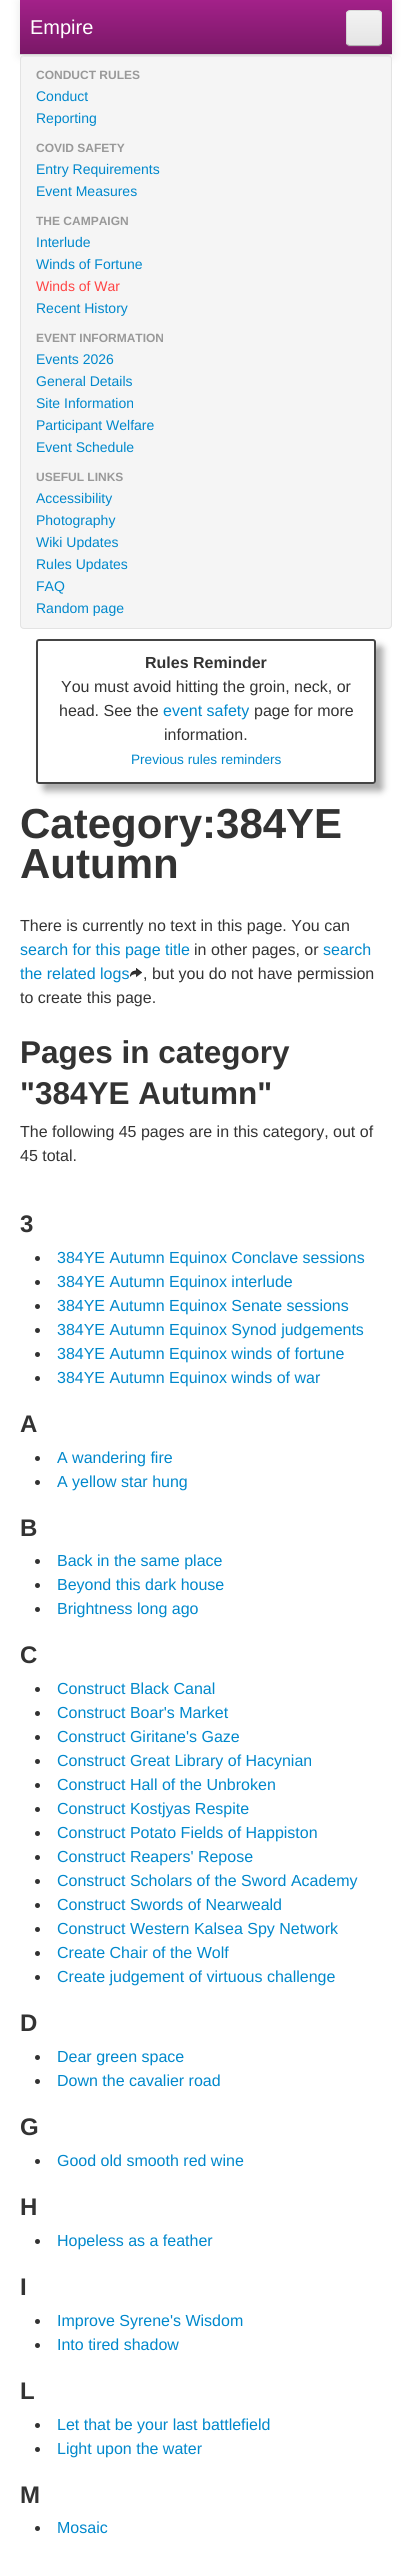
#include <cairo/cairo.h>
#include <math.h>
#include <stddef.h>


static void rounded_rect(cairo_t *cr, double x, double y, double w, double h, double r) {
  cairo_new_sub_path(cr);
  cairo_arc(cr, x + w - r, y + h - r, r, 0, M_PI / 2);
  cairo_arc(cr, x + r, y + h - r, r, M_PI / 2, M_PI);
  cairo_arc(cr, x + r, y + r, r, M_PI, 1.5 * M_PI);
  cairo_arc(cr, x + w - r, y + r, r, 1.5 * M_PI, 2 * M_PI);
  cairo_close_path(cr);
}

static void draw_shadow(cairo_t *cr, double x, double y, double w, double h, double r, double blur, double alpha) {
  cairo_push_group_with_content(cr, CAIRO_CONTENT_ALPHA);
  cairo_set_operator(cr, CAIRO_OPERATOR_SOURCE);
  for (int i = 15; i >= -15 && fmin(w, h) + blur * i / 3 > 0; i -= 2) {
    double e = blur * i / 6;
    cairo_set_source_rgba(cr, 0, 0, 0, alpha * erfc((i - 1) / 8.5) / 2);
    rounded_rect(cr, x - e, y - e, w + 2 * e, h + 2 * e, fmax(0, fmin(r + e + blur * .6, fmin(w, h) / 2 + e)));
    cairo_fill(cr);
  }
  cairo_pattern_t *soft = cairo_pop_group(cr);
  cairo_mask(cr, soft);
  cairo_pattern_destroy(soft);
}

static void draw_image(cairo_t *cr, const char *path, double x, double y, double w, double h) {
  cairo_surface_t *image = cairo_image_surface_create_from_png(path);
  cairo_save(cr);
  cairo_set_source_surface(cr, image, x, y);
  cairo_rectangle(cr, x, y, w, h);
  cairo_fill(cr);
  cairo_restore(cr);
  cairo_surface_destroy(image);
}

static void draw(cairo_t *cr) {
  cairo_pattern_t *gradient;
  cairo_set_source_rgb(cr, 1, 1, 1);
  cairo_paint(cr);
  cairo_set_source_rgb(cr, 0, 0, 0);
  draw_shadow(cr, 20, 1, 372, 55, 0, 5, 0.1);
  gradient = cairo_pattern_create_linear(206, 0, 206, 54);
  cairo_pattern_add_color_stop_rgba(gradient, 0, 163 / 255.0, 33 / 255.0, 137 / 255.0, 1);
  cairo_pattern_add_color_stop_rgba(gradient, 1, 122 / 255.0, 24 / 255.0, 103 / 255.0, 1);
  cairo_set_source(cr, gradient);
  cairo_pattern_destroy(gradient);
  cairo_rectangle(cr, 20, 0, 372, 54);
  cairo_fill(cr);
  cairo_set_source_rgb(cr, 212 / 255.0, 212 / 255.0, 212 / 255.0);
  cairo_rectangle(cr, 20, 54, 372, 1);
  cairo_fill(cr);
  cairo_set_source_rgb(cr, 138 / 255.0, 42 / 255.0, 119 / 255.0);
  cairo_new_path(cr);
  cairo_move_to(cr, 346, 42);
  cairo_curve_to(cr, 346, 48, 350, 47, 354.5, 47);
  cairo_line_to(cr, 373.5, 47);
  cairo_curve_to(cr, 378, 47, 382, 48, 382, 42);
  cairo_curve_to(cr, 382, 44, 380, 46, 378, 46);
  cairo_line_to(cr, 350, 46);
  cairo_curve_to(cr, 348, 46, 346, 44, 346, 42);
  cairo_close_path(cr);
  cairo_fill(cr);
  cairo_set_source_rgb(cr, 237 / 255.0, 237 / 255.0, 237 / 255.0);
  rounded_rect(cr, 346, 10, 36, 36, 4);
  cairo_fill(cr);
  cairo_save(cr);
  rounded_rect(cr, 346, 10, 36, 36, 4);
  cairo_clip(cr);
  gradient = cairo_pattern_create_linear(364, 11, 364, 45);
  cairo_pattern_add_color_stop_rgba(gradient, 0, 242 / 255.0, 242 / 255.0, 242 / 255.0, 1);
  cairo_pattern_add_color_stop_rgba(gradient, 1, 229 / 255.0, 229 / 255.0, 229 / 255.0, 1);
  cairo_set_source(cr, gradient);
  cairo_pattern_destroy(gradient);
  cairo_rectangle(cr, 346, 11, 36, 34);
  cairo_fill(cr);
  cairo_restore(cr);
  cairo_new_path(cr);
  cairo_move_to(cr, 380.5, 44.5);
  cairo_curve_to(cr, 380, 45, 379, 45.5, 378, 45.5);
  cairo_line_to(cr, 350, 45.5);
  cairo_curve_to(cr, 349, 45.5, 348, 45, 347.5, 44.5);
  cairo_set_source_rgba(cr, 0, 0, 0, 0.25);
  cairo_set_line_width(cr, 1);
  cairo_stroke(cr);
  cairo_new_path(cr);
  cairo_move_to(cr, 347.5, 44.5);
  cairo_curve_to(cr, 346, 42.5, 346.5, 39, 346.5, 37.5);
  cairo_line_to(cr, 346.5, 28);
  cairo_curve_to(cr, 346.5, 7.5, 343.5, 10.5, 364, 10.5);
  cairo_curve_to(cr, 384.5, 10.5, 381.5, 7.5, 381.5, 28);
  cairo_line_to(cr, 381.5, 37.5);
  cairo_curve_to(cr, 381.5, 39, 382, 42.5, 380.5, 44.5);
  cairo_set_source_rgba(cr, 0, 0, 0, 0.1);
  cairo_stroke(cr);
  cairo_set_source_rgb(cr, 245 / 255.0, 245 / 255.0, 245 / 255.0);
  rounded_rect(cr, 20, 55, 372, 574, 4);
  cairo_fill(cr);
  cairo_set_source_rgb(cr, 233 / 255.0, 233 / 255.0, 233 / 255.0);
  cairo_new_path(cr);
  cairo_move_to(cr, 24, 57);
  cairo_line_to(cr, 388, 57);
  cairo_curve_to(cr, 390, 57, 391, 58, 391, 60);
  cairo_curve_to(cr, 391, 58, 390, 56, 388, 56);
  cairo_line_to(cr, 24, 56);
  cairo_line_to(cr, 22, 57);
  cairo_line_to(cr, 21, 60);
  cairo_curve_to(cr, 21, 58, 22, 57, 24, 57);
  cairo_close_path(cr);
  cairo_fill(cr);
  rounded_rect(cr, 20.5, 55.5, 371, 573, 3.5);
  cairo_set_source_rgb(cr, 227 / 255.0, 227 / 255.0, 227 / 255.0);
  cairo_stroke(cr);
  cairo_save(cr);
  cairo_set_fill_rule(cr, CAIRO_FILL_RULE_EVEN_ODD);
  cairo_new_path(cr);
  cairo_move_to(cr, 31, 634);
  cairo_line_to(cr, 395, 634);
  cairo_line_to(cr, 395, 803);
  cairo_line_to(cr, 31, 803);
  cairo_close_path(cr);
  cairo_move_to(cr, 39, 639);
  cairo_line_to(cr, 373, 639);
  cairo_curve_to(cr, 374.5, 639, 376, 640.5, 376, 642);
  cairo_line_to(cr, 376, 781);
  cairo_curve_to(cr, 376, 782.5, 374.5, 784, 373, 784);
  cairo_line_to(cr, 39, 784);
  cairo_curve_to(cr, 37.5, 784, 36, 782.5, 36, 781);
  cairo_line_to(cr, 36, 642);
  cairo_curve_to(cr, 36, 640.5, 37.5, 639, 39, 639);
  cairo_close_path(cr);
  cairo_clip(cr);
  cairo_set_source_rgb(cr, 170 / 255.0, 170 / 255.0, 170 / 255.0);
  draw_shadow(cr, 43, 646, 340, 145, 3, 3.5, 1);
  cairo_restore(cr);
  rounded_rect(cr, 37, 640, 338, 143, 2);
  cairo_set_source_rgb(cr, 68 / 255.0, 68 / 255.0, 68 / 255.0);
  cairo_set_line_width(cr, 2);
  cairo_stroke(cr);
  draw_image(cr, "images/1.png", 130, 968, 12, 10);
  cairo_set_source_rgb(cr, 51 / 255.0, 51 / 255.0, 51 / 255.0);
  cairo_arc(cr, 37.5, 1258.5, 2.5, 0, 2 * M_PI);
  cairo_fill(cr);
  cairo_arc(cr, 37.5, 1282.5, 2.5, 0, 2 * M_PI);
  cairo_fill(cr);
  cairo_arc(cr, 37.5, 1306.5, 2.5, 0, 2 * M_PI);
  cairo_fill(cr);
  cairo_arc(cr, 37.5, 1330.5, 2.5, 0, 2 * M_PI);
  cairo_fill(cr);
  cairo_arc(cr, 37.5, 1354.5, 2.5, 0, 2 * M_PI);
  cairo_fill(cr);
  cairo_arc(cr, 37.5, 1378.5, 2.5, 0, 2 * M_PI);
  cairo_fill(cr);
  cairo_arc(cr, 37.5, 1458.5, 2.5, 0, 2 * M_PI);
  cairo_fill(cr);
  cairo_arc(cr, 37.5, 1482.5, 2.5, 0, 2 * M_PI);
  cairo_fill(cr);
  cairo_arc(cr, 37.5, 1561.5, 2.5, 0, 2 * M_PI);
  cairo_fill(cr);
  cairo_arc(cr, 37.5, 1585.5, 2.5, 0, 2 * M_PI);
  cairo_fill(cr);
  cairo_arc(cr, 37.5, 1609.5, 2.5, 0, 2 * M_PI);
  cairo_fill(cr);
  cairo_arc(cr, 37.5, 1689.5, 2.5, 0, 2 * M_PI);
  cairo_fill(cr);
  cairo_arc(cr, 37.5, 1713.5, 2.5, 0, 2 * M_PI);
  cairo_fill(cr);
  cairo_arc(cr, 37.5, 1737.5, 2.5, 0, 2 * M_PI);
  cairo_fill(cr);
  cairo_arc(cr, 37.5, 1761.5, 2.5, 0, 2 * M_PI);
  cairo_fill(cr);
  cairo_arc(cr, 37.5, 1785.5, 2.5, 0, 2 * M_PI);
  cairo_fill(cr);
  cairo_arc(cr, 37.5, 1809.5, 2.5, 0, 2 * M_PI);
  cairo_fill(cr);
  cairo_arc(cr, 37.5, 1833.5, 2.5, 0, 2 * M_PI);
  cairo_fill(cr);
  cairo_arc(cr, 37.5, 1857.5, 2.5, 0, 2 * M_PI);
  cairo_fill(cr);
  cairo_arc(cr, 37.5, 1881.5, 2.5, 0, 2 * M_PI);
  cairo_fill(cr);
  cairo_arc(cr, 37.5, 1905.5, 2.5, 0, 2 * M_PI);
  cairo_fill(cr);
  cairo_arc(cr, 37.5, 1929.5, 2.5, 0, 2 * M_PI);
  cairo_fill(cr);
  cairo_arc(cr, 37.5, 1953.5, 2.5, 0, 2 * M_PI);
  cairo_fill(cr);
  cairo_arc(cr, 37.5, 1977.5, 2.5, 0, 2 * M_PI);
  cairo_fill(cr);
  cairo_arc(cr, 37.5, 2057.5, 2.5, 0, 2 * M_PI);
  cairo_fill(cr);
  cairo_arc(cr, 37.5, 2081.5, 2.5, 0, 2 * M_PI);
  cairo_fill(cr);
  cairo_arc(cr, 37.5, 2161.5, 2.5, 0, 2 * M_PI);
  cairo_fill(cr);
  cairo_arc(cr, 37.5, 2241.5, 2.5, 0, 2 * M_PI);
  cairo_fill(cr);
  cairo_arc(cr, 37.5, 2321.5, 2.5, 0, 2 * M_PI);
  cairo_fill(cr);
  cairo_arc(cr, 37.5, 2345.5, 2.5, 0, 2 * M_PI);
  cairo_fill(cr);
  cairo_arc(cr, 37.5, 2425.5, 2.5, 0, 2 * M_PI);
  cairo_fill(cr);
  cairo_arc(cr, 37.5, 2449.5, 2.5, 0, 2 * M_PI);
  cairo_fill(cr);
  cairo_arc(cr, 37.5, 2528.5, 2.5, 0, 2 * M_PI);
  cairo_fill(cr);
  cairo_select_font_face(cr, "Liberation Sans", CAIRO_FONT_SLANT_NORMAL, CAIRO_FONT_WEIGHT_NORMAL);
  cairo_set_font_size(cr, 20);
  cairo_set_source_rgb(cr, 1, 1, 1);
  cairo_move_to(cr, 30, 34);
  cairo_show_text(cr, "Empire");
  cairo_select_font_face(cr, "Liberation Sans", CAIRO_FONT_SLANT_NORMAL, CAIRO_FONT_WEIGHT_BOLD);
  cairo_set_font_size(cr, 12);
  cairo_set_source_rgb(cr, 153 / 255.0, 153 / 255.0, 153 / 255.0);
  cairo_move_to(cr, 36, 79);
  cairo_show_text(cr, "CONDUCT RULES");
  cairo_select_font_face(cr, "Liberation Sans", CAIRO_FONT_SLANT_NORMAL, CAIRO_FONT_WEIGHT_NORMAL);
  cairo_set_font_size(cr, 14);
  cairo_set_source_rgb(cr, 0, 136 / 255.0, 204 / 255.0);
  cairo_move_to(cr, 36, 101);
  cairo_show_text(cr, "Conduct");
  cairo_move_to(cr, 36, 123);
  cairo_show_text(cr, "Reporting");
  cairo_select_font_face(cr, "Liberation Sans", CAIRO_FONT_SLANT_NORMAL, CAIRO_FONT_WEIGHT_BOLD);
  cairo_set_font_size(cr, 12);
  cairo_set_source_rgb(cr, 153 / 255.0, 153 / 255.0, 153 / 255.0);
  cairo_move_to(cr, 36, 152);
  cairo_show_text(cr, "COVID SAFETY");
  cairo_select_font_face(cr, "Liberation Sans", CAIRO_FONT_SLANT_NORMAL, CAIRO_FONT_WEIGHT_NORMAL);
  cairo_set_font_size(cr, 14);
  cairo_set_source_rgb(cr, 0, 136 / 255.0, 204 / 255.0);
  cairo_move_to(cr, 36, 174);
  cairo_show_text(cr, "Entry Requirements");
  cairo_move_to(cr, 36, 196);
  cairo_show_text(cr, "Event Measures");
  cairo_select_font_face(cr, "Liberation Sans", CAIRO_FONT_SLANT_NORMAL, CAIRO_FONT_WEIGHT_BOLD);
  cairo_set_font_size(cr, 12);
  cairo_set_source_rgb(cr, 153 / 255.0, 153 / 255.0, 153 / 255.0);
  cairo_move_to(cr, 36, 225);
  cairo_show_text(cr, "THE CAMPAIGN");
  cairo_select_font_face(cr, "Liberation Sans", CAIRO_FONT_SLANT_NORMAL, CAIRO_FONT_WEIGHT_NORMAL);
  cairo_set_font_size(cr, 14);
  cairo_set_source_rgb(cr, 0, 136 / 255.0, 204 / 255.0);
  cairo_move_to(cr, 36, 247);
  cairo_show_text(cr, "Interlude");
  cairo_move_to(cr, 36, 269);
  cairo_show_text(cr, "Winds of Fortune");
  cairo_set_source_rgb(cr, 1, 68 / 255.0, 68 / 255.0);
  cairo_move_to(cr, 36, 291);
  cairo_show_text(cr, "Winds of War");
  cairo_set_source_rgb(cr, 0, 136 / 255.0, 204 / 255.0);
  cairo_move_to(cr, 36, 313);
  cairo_show_text(cr, "Recent History");
  cairo_select_font_face(cr, "Liberation Sans", CAIRO_FONT_SLANT_NORMAL, CAIRO_FONT_WEIGHT_BOLD);
  cairo_set_font_size(cr, 12);
  cairo_set_source_rgb(cr, 153 / 255.0, 153 / 255.0, 153 / 255.0);
  cairo_move_to(cr, 36, 342);
  cairo_show_text(cr, "EVENT INFORMATION");
  cairo_select_font_face(cr, "Liberation Sans", CAIRO_FONT_SLANT_NORMAL, CAIRO_FONT_WEIGHT_NORMAL);
  cairo_set_font_size(cr, 14);
  cairo_set_source_rgb(cr, 0, 136 / 255.0, 204 / 255.0);
  cairo_move_to(cr, 36, 364);
  cairo_show_text(cr, "Events 2026");
  cairo_move_to(cr, 36, 386);
  cairo_show_text(cr, "General Details");
  cairo_move_to(cr, 36, 408);
  cairo_show_text(cr, "Site Information");
  cairo_move_to(cr, 36, 430);
  cairo_show_text(cr, "Participant Welfare");
  cairo_move_to(cr, 36, 452);
  cairo_show_text(cr, "Event Schedule");
  cairo_select_font_face(cr, "Liberation Sans", CAIRO_FONT_SLANT_NORMAL, CAIRO_FONT_WEIGHT_BOLD);
  cairo_set_font_size(cr, 12);
  cairo_set_source_rgb(cr, 153 / 255.0, 153 / 255.0, 153 / 255.0);
  cairo_move_to(cr, 36, 481);
  cairo_show_text(cr, "USEFUL LINKS");
  cairo_select_font_face(cr, "Liberation Sans", CAIRO_FONT_SLANT_NORMAL, CAIRO_FONT_WEIGHT_NORMAL);
  cairo_set_font_size(cr, 14);
  cairo_set_source_rgb(cr, 0, 136 / 255.0, 204 / 255.0);
  cairo_move_to(cr, 36, 503);
  cairo_show_text(cr, "Accessibility");
  cairo_move_to(cr, 36, 525);
  cairo_show_text(cr, "Photography");
  cairo_move_to(cr, 36, 547);
  cairo_show_text(cr, "Wiki Updates");
  cairo_move_to(cr, 36, 569);
  cairo_show_text(cr, "Rules Updates");
  cairo_move_to(cr, 36, 591);
  cairo_show_text(cr, "FAQ");
  cairo_move_to(cr, 36, 613);
  cairo_show_text(cr, "Random page");
  cairo_select_font_face(cr, "Liberation Sans", CAIRO_FONT_SLANT_NORMAL, CAIRO_FONT_WEIGHT_BOLD);
  cairo_set_font_size(cr, 16);
  cairo_set_source_rgb(cr, 51 / 255.0, 51 / 255.0, 51 / 255.0);
  cairo_move_to(cr, 145, 668);
  cairo_show_text(cr, "Rules Reminder");
  cairo_select_font_face(cr, "Liberation Sans", CAIRO_FONT_SLANT_NORMAL, CAIRO_FONT_WEIGHT_NORMAL);
  cairo_move_to(cr, 61, 692);
  cairo_show_text(cr, "You must avoid hitting the groin, neck, or");
  cairo_move_to(cr, 59, 716);
  cairo_show_text(cr, "head. See the");
  cairo_set_source_rgb(cr, 0, 136 / 255.0, 204 / 255.0);
  cairo_move_to(cr, 163, 716);
  cairo_show_text(cr, "event safety");
  cairo_set_source_rgb(cr, 51 / 255.0, 51 / 255.0, 51 / 255.0);
  cairo_move_to(cr, 254, 716);
  cairo_show_text(cr, "page for more");
  cairo_move_to(cr, 164, 740);
  cairo_show_text(cr, "information.");
  cairo_set_font_size(cr, 13.6);
  cairo_set_source_rgb(cr, 0, 136 / 255.0, 204 / 255.0);
  cairo_move_to(cr, 131, 764);
  cairo_show_text(cr, "Previous rules reminders");
  cairo_select_font_face(cr, "Liberation Sans", CAIRO_FONT_SLANT_NORMAL, CAIRO_FONT_WEIGHT_BOLD);
  cairo_set_font_size(cr, 42);
  cairo_set_source_rgb(cr, 51 / 255.0, 51 / 255.0, 51 / 255.0);
  cairo_move_to(cr, 20, 838);
  cairo_show_text(cr, "Category:384YE");
  cairo_move_to(cr, 20, 878);
  cairo_show_text(cr, "Autumn");
  cairo_select_font_face(cr, "Liberation Sans", CAIRO_FONT_SLANT_NORMAL, CAIRO_FONT_WEIGHT_NORMAL);
  cairo_set_font_size(cr, 16);
  cairo_move_to(cr, 20, 931);
  cairo_show_text(cr, "There is currently no text in this page. You can");
  cairo_set_source_rgb(cr, 0, 136 / 255.0, 204 / 255.0);
  cairo_move_to(cr, 20, 955);
  cairo_show_text(cr, "search for this page title");
  cairo_move_to(cr, 323, 955);
  cairo_show_text(cr, "search");
  cairo_move_to(cr, 20, 979);
  cairo_show_text(cr, "the related logs");
  cairo_set_source_rgb(cr, 51 / 255.0, 51 / 255.0, 51 / 255.0);
  cairo_move_to(cr, 194, 955);
  cairo_show_text(cr, "in other pages, or");
  cairo_move_to(cr, 143, 979);
  cairo_show_text(cr, ", but you do not have permission");
  cairo_move_to(cr, 20, 1003);
  cairo_show_text(cr, "to create this page.");
  cairo_select_font_face(cr, "Liberation Sans", CAIRO_FONT_SLANT_NORMAL, CAIRO_FONT_WEIGHT_BOLD);
  cairo_set_font_size(cr, 31.5);
  cairo_move_to(cr, 20, 1063);
  cairo_show_text(cr, "Pages in category");
  cairo_move_to(cr, 20, 1104);
  cairo_show_text(cr, "\"384YE Autumn\"");
  cairo_select_font_face(cr, "Liberation Sans", CAIRO_FONT_SLANT_NORMAL, CAIRO_FONT_WEIGHT_NORMAL);
  cairo_set_font_size(cr, 16);
  cairo_move_to(cr, 20, 1137);
  cairo_show_text(cr, "The following 45 pages are in this category, out of");
  cairo_move_to(cr, 20, 1161);
  cairo_show_text(cr, "45 total.");
  cairo_select_font_face(cr, "Liberation Sans", CAIRO_FONT_SLANT_NORMAL, CAIRO_FONT_WEIGHT_BOLD);
  cairo_set_font_size(cr, 24);
  cairo_move_to(cr, 20, 1232);
  cairo_show_text(cr, "3");
  cairo_select_font_face(cr, "Liberation Sans", CAIRO_FONT_SLANT_NORMAL, CAIRO_FONT_WEIGHT_NORMAL);
  cairo_set_font_size(cr, 16);
  cairo_set_source_rgb(cr, 0, 136 / 255.0, 204 / 255.0);
  cairo_move_to(cr, 57, 1263);
  cairo_show_text(cr, "384YE Autumn Equinox Conclave sessions");
  cairo_move_to(cr, 57, 1287);
  cairo_show_text(cr, "384YE Autumn Equinox interlude");
  cairo_move_to(cr, 57, 1311);
  cairo_show_text(cr, "384YE Autumn Equinox Senate sessions");
  cairo_move_to(cr, 57, 1335);
  cairo_show_text(cr, "384YE Autumn Equinox Synod judgements");
  cairo_move_to(cr, 57, 1359);
  cairo_show_text(cr, "384YE Autumn Equinox winds of fortune");
  cairo_move_to(cr, 57, 1383);
  cairo_show_text(cr, "384YE Autumn Equinox winds of war");
  cairo_select_font_face(cr, "Liberation Sans", CAIRO_FONT_SLANT_NORMAL, CAIRO_FONT_WEIGHT_BOLD);
  cairo_set_font_size(cr, 24);
  cairo_set_source_rgb(cr, 51 / 255.0, 51 / 255.0, 51 / 255.0);
  cairo_move_to(cr, 20, 1432);
  cairo_show_text(cr, "A");
  cairo_select_font_face(cr, "Liberation Sans", CAIRO_FONT_SLANT_NORMAL, CAIRO_FONT_WEIGHT_NORMAL);
  cairo_set_font_size(cr, 16);
  cairo_set_source_rgb(cr, 0, 136 / 255.0, 204 / 255.0);
  cairo_move_to(cr, 57, 1463);
  cairo_show_text(cr, "A wandering fire");
  cairo_move_to(cr, 57, 1487);
  cairo_show_text(cr, "A yellow star hung");
  cairo_select_font_face(cr, "Liberation Sans", CAIRO_FONT_SLANT_NORMAL, CAIRO_FONT_WEIGHT_BOLD);
  cairo_set_font_size(cr, 24);
  cairo_set_source_rgb(cr, 51 / 255.0, 51 / 255.0, 51 / 255.0);
  cairo_move_to(cr, 20, 1536);
  cairo_show_text(cr, "B");
  cairo_select_font_face(cr, "Liberation Sans", CAIRO_FONT_SLANT_NORMAL, CAIRO_FONT_WEIGHT_NORMAL);
  cairo_set_font_size(cr, 16);
  cairo_set_source_rgb(cr, 0, 136 / 255.0, 204 / 255.0);
  cairo_move_to(cr, 57, 1566);
  cairo_show_text(cr, "Back in the same place");
  cairo_move_to(cr, 57, 1590);
  cairo_show_text(cr, "Beyond this dark house");
  cairo_move_to(cr, 57, 1614);
  cairo_show_text(cr, "Brightness long ago");
  cairo_select_font_face(cr, "Liberation Sans", CAIRO_FONT_SLANT_NORMAL, CAIRO_FONT_WEIGHT_BOLD);
  cairo_set_font_size(cr, 24);
  cairo_set_source_rgb(cr, 51 / 255.0, 51 / 255.0, 51 / 255.0);
  cairo_move_to(cr, 20, 1663);
  cairo_show_text(cr, "C");
  cairo_select_font_face(cr, "Liberation Sans", CAIRO_FONT_SLANT_NORMAL, CAIRO_FONT_WEIGHT_NORMAL);
  cairo_set_font_size(cr, 16);
  cairo_set_source_rgb(cr, 0, 136 / 255.0, 204 / 255.0);
  cairo_move_to(cr, 57, 1694);
  cairo_show_text(cr, "Construct Black Canal");
  cairo_move_to(cr, 57, 1718);
  cairo_show_text(cr, "Construct Boar's Market");
  cairo_move_to(cr, 57, 1742);
  cairo_show_text(cr, "Construct Giritane's Gaze");
  cairo_move_to(cr, 57, 1766);
  cairo_show_text(cr, "Construct Great Library of Hacynian");
  cairo_move_to(cr, 57, 1790);
  cairo_show_text(cr, "Construct Hall of the Unbroken");
  cairo_move_to(cr, 57, 1814);
  cairo_show_text(cr, "Construct Kostjyas Respite");
  cairo_move_to(cr, 57, 1838);
  cairo_show_text(cr, "Construct Potato Fields of Happiston");
  cairo_move_to(cr, 57, 1862);
  cairo_show_text(cr, "Construct Reapers' Repose");
  cairo_move_to(cr, 57, 1886);
  cairo_show_text(cr, "Construct Scholars of the Sword Academy");
  cairo_move_to(cr, 57, 1910);
  cairo_show_text(cr, "Construct Swords of Nearweald");
  cairo_move_to(cr, 57, 1934);
  cairo_show_text(cr, "Construct Western Kalsea Spy Network");
  cairo_move_to(cr, 57, 1958);
  cairo_show_text(cr, "Create Chair of the Wolf");
  cairo_move_to(cr, 57, 1982);
  cairo_show_text(cr, "Create judgement of virtuous challenge");
  cairo_select_font_face(cr, "Liberation Sans", CAIRO_FONT_SLANT_NORMAL, CAIRO_FONT_WEIGHT_BOLD);
  cairo_set_font_size(cr, 24);
  cairo_set_source_rgb(cr, 51 / 255.0, 51 / 255.0, 51 / 255.0);
  cairo_move_to(cr, 20, 2031);
  cairo_show_text(cr, "D");
  cairo_select_font_face(cr, "Liberation Sans", CAIRO_FONT_SLANT_NORMAL, CAIRO_FONT_WEIGHT_NORMAL);
  cairo_set_font_size(cr, 16);
  cairo_set_source_rgb(cr, 0, 136 / 255.0, 204 / 255.0);
  cairo_move_to(cr, 57, 2062);
  cairo_show_text(cr, "Dear green space");
  cairo_move_to(cr, 57, 2086);
  cairo_show_text(cr, "Down the cavalier road");
  cairo_select_font_face(cr, "Liberation Sans", CAIRO_FONT_SLANT_NORMAL, CAIRO_FONT_WEIGHT_BOLD);
  cairo_set_font_size(cr, 24);
  cairo_set_source_rgb(cr, 51 / 255.0, 51 / 255.0, 51 / 255.0);
  cairo_move_to(cr, 20, 2135);
  cairo_show_text(cr, "G");
  cairo_select_font_face(cr, "Liberation Sans", CAIRO_FONT_SLANT_NORMAL, CAIRO_FONT_WEIGHT_NORMAL);
  cairo_set_font_size(cr, 16);
  cairo_set_source_rgb(cr, 0, 136 / 255.0, 204 / 255.0);
  cairo_move_to(cr, 57, 2166);
  cairo_show_text(cr, "Good old smooth red wine");
  cairo_select_font_face(cr, "Liberation Sans", CAIRO_FONT_SLANT_NORMAL, CAIRO_FONT_WEIGHT_BOLD);
  cairo_set_font_size(cr, 24);
  cairo_set_source_rgb(cr, 51 / 255.0, 51 / 255.0, 51 / 255.0);
  cairo_move_to(cr, 20, 2215);
  cairo_show_text(cr, "H");
  cairo_select_font_face(cr, "Liberation Sans", CAIRO_FONT_SLANT_NORMAL, CAIRO_FONT_WEIGHT_NORMAL);
  cairo_set_font_size(cr, 16);
  cairo_set_source_rgb(cr, 0, 136 / 255.0, 204 / 255.0);
  cairo_move_to(cr, 57, 2246);
  cairo_show_text(cr, "Hopeless as a feather");
  cairo_select_font_face(cr, "Liberation Sans", CAIRO_FONT_SLANT_NORMAL, CAIRO_FONT_WEIGHT_BOLD);
  cairo_set_font_size(cr, 24);
  cairo_set_source_rgb(cr, 51 / 255.0, 51 / 255.0, 51 / 255.0);
  cairo_move_to(cr, 20, 2295);
  cairo_show_text(cr, "I");
  cairo_select_font_face(cr, "Liberation Sans", CAIRO_FONT_SLANT_NORMAL, CAIRO_FONT_WEIGHT_NORMAL);
  cairo_set_font_size(cr, 16);
  cairo_set_source_rgb(cr, 0, 136 / 255.0, 204 / 255.0);
  cairo_move_to(cr, 57, 2326);
  cairo_show_text(cr, "Improve Syrene's Wisdom");
  cairo_move_to(cr, 57, 2350);
  cairo_show_text(cr, "Into tired shadow");
  cairo_select_font_face(cr, "Liberation Sans", CAIRO_FONT_SLANT_NORMAL, CAIRO_FONT_WEIGHT_BOLD);
  cairo_set_font_size(cr, 24);
  cairo_set_source_rgb(cr, 51 / 255.0, 51 / 255.0, 51 / 255.0);
  cairo_move_to(cr, 20, 2399);
  cairo_show_text(cr, "L");
  cairo_select_font_face(cr, "Liberation Sans", CAIRO_FONT_SLANT_NORMAL, CAIRO_FONT_WEIGHT_NORMAL);
  cairo_set_font_size(cr, 16);
  cairo_set_source_rgb(cr, 0, 136 / 255.0, 204 / 255.0);
  cairo_move_to(cr, 57, 2430);
  cairo_show_text(cr, "Let that be your last battlefield");
  cairo_move_to(cr, 57, 2454);
  cairo_show_text(cr, "Light upon the water");
  cairo_select_font_face(cr, "Liberation Sans", CAIRO_FONT_SLANT_NORMAL, CAIRO_FONT_WEIGHT_BOLD);
  cairo_set_font_size(cr, 24);
  cairo_set_source_rgb(cr, 51 / 255.0, 51 / 255.0, 51 / 255.0);
  cairo_move_to(cr, 20, 2503);
  cairo_show_text(cr, "M");
  cairo_select_font_face(cr, "Liberation Sans", CAIRO_FONT_SLANT_NORMAL, CAIRO_FONT_WEIGHT_NORMAL);
  cairo_set_font_size(cr, 16);
  cairo_set_source_rgb(cr, 0, 136 / 255.0, 204 / 255.0);
  cairo_move_to(cr, 57, 2533);
  cairo_show_text(cr, "Mosaic");
}

int main(void) {
  cairo_surface_t *surface = cairo_image_surface_create(CAIRO_FORMAT_RGB24, 412, 2561);
  cairo_t *cr = cairo_create(surface);
  cairo_font_options_t *options = cairo_font_options_create();
  cairo_font_options_set_hint_metrics(options, CAIRO_HINT_METRICS_OFF);
  cairo_font_options_set_hint_style(options, CAIRO_HINT_STYLE_NONE);
  cairo_set_font_options(cr, options);
  cairo_set_miter_limit(cr, 4);
  draw(cr);
  cairo_surface_write_to_png(surface, "out.png");
  cairo_font_options_destroy(options);
  cairo_destroy(cr);
  cairo_surface_destroy(surface);
  return 0;
}
